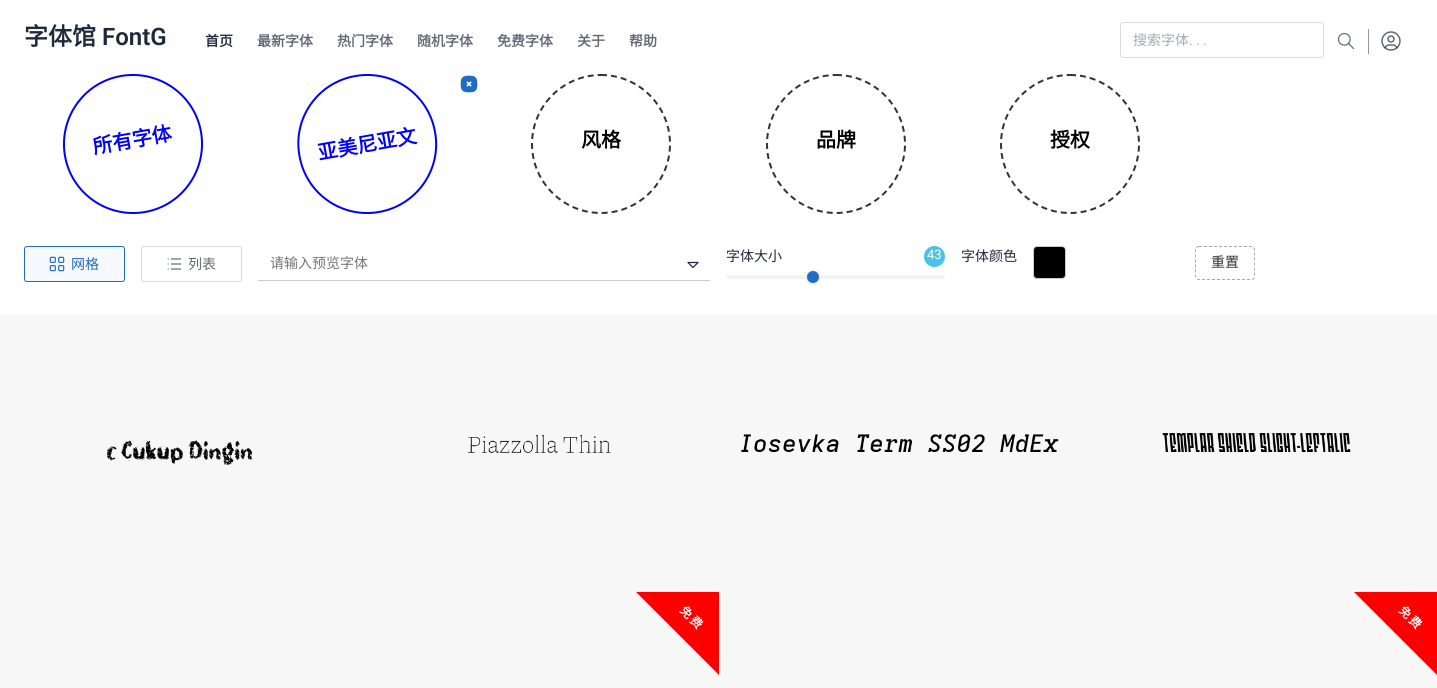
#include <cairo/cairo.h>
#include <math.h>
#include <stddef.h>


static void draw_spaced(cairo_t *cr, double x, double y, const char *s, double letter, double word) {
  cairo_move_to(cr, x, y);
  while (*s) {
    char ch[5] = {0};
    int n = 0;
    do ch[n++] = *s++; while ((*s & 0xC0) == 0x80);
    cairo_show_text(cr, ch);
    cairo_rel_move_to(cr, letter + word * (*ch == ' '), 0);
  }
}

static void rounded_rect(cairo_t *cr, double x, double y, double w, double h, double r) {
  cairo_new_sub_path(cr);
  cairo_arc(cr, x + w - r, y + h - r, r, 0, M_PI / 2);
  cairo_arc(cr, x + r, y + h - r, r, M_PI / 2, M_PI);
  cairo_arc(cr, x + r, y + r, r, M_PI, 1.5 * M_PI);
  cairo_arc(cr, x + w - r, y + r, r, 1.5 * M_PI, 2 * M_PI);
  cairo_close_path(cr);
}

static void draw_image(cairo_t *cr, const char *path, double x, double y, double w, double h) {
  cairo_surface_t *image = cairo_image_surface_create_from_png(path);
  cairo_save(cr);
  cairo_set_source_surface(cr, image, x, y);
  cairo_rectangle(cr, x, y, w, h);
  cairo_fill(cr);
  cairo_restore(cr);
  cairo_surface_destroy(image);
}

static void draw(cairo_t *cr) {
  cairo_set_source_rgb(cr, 1, 1, 1);
  cairo_paint(cr);
  rounded_rect(cr, 1120.5, 22.5, 203, 35, 3.5);
  cairo_set_source_rgb(cr, 217 / 255.0, 219 / 255.0, 222 / 255.0);
  cairo_set_line_width(cr, 1);
  cairo_stroke(cr);
  draw_image(cr, "images/1.png", 1337, 32, 18, 18);
  cairo_set_source_rgb(cr, 151 / 255.0, 151 / 255.0, 151 / 255.0);
  cairo_rectangle(cr, 1368, 29, 1, 25);
  cairo_fill(cr);
  draw_image(cr, "images/2.png", 1381, 31, 20, 20);
  cairo_new_path(cr);
  cairo_move_to(cr, 121, 76);
  cairo_curve_to(cr, 158.5, 69.5, 194.5, 94.5, 201, 132);
  cairo_curve_to(cr, 207.5, 169.5, 182.5, 205.5, 145, 212);
  cairo_curve_to(cr, 107.5, 218.5, 71.5, 193.5, 65, 156);
  cairo_curve_to(cr, 58.5, 118.5, 83.5, 82.5, 121, 76);
  cairo_close_path(cr);
  cairo_set_source_rgb(cr, 0, 0, 1);
  cairo_set_line_width(cr, 2);
  cairo_stroke(cr);
  draw_image(cr, "images/3.png", 460, 75, 18, 18);
  cairo_new_path(cr);
  cairo_move_to(cr, 355.5, 76);
  cairo_curve_to(cr, 393, 69.5, 428.5, 94.5, 435, 132);
  cairo_curve_to(cr, 442, 169.5, 416.5, 205.5, 379, 212);
  cairo_curve_to(cr, 341.5, 218.5, 306, 193.5, 299.5, 156);
  cairo_curve_to(cr, 292.5, 118.5, 317.5, 82.5, 355.5, 76);
  cairo_close_path(cr);
  cairo_stroke(cr);
  cairo_new_path(cr);
  cairo_move_to(cr, 601, 75);
  cairo_curve_to(cr, 639, 75, 670, 106, 670, 144);
  cairo_curve_to(cr, 670, 182, 639, 213, 601, 213);
  cairo_curve_to(cr, 563, 213, 532, 182, 532, 144);
  cairo_curve_to(cr, 532, 106, 563, 75, 601, 75);
  cairo_close_path(cr);
  cairo_set_source_rgb(cr, 51 / 255.0, 51 / 255.0, 51 / 255.0);
  cairo_set_dash(cr, (double[]){6, 4}, 2, 0);
  cairo_stroke(cr);
  cairo_new_path(cr);
  cairo_move_to(cr, 836, 75);
  cairo_curve_to(cr, 874, 75, 905, 106, 905, 144);
  cairo_curve_to(cr, 905, 182, 874, 213, 836, 213);
  cairo_curve_to(cr, 798, 213, 767, 182, 767, 144);
  cairo_curve_to(cr, 767, 106, 798, 75, 836, 75);
  cairo_close_path(cr);
  cairo_stroke(cr);
  cairo_new_path(cr);
  cairo_move_to(cr, 1070, 75);
  cairo_curve_to(cr, 1108, 75, 1139, 106, 1139, 144);
  cairo_curve_to(cr, 1139, 182, 1108, 213, 1070, 213);
  cairo_curve_to(cr, 1032, 213, 1001, 182, 1001, 144);
  cairo_curve_to(cr, 1001, 106, 1032, 75, 1070, 75);
  cairo_close_path(cr);
  cairo_stroke(cr);
  cairo_set_source_rgb(cr, 246 / 255.0, 249 / 255.0, 253 / 255.0);
  rounded_rect(cr, 24.5, 246.5, 100, 35, 2.5);
  cairo_fill_preserve(cr);
  cairo_set_source_rgb(cr, 32 / 255.0, 107 / 255.0, 196 / 255.0);
  cairo_set_line_width(cr, 1);
  cairo_set_dash(cr, NULL, 0, 0);
  cairo_stroke(cr);
  draw_image(cr, "images/4.png", 49, 256, 16, 16);
  rounded_rect(cr, 141.5, 246.5, 100, 35, 2.5);
  cairo_set_source_rgb(cr, 217 / 255.0, 219 / 255.0, 222 / 255.0);
  cairo_stroke(cr);
  draw_image(cr, "images/5.png", 167, 258, 15, 12);
  cairo_set_source_rgb(cr, 204 / 255.0, 204 / 255.0, 204 / 255.0);
  cairo_rectangle(cr, 258, 280, 452, 1);
  cairo_fill(cr);
  cairo_new_path(cr);
  cairo_move_to(cr, 688, 262.5);
  cairo_line_to(cr, 693, 267.5);
  cairo_line_to(cr, 698, 262.5);
  cairo_line_to(cr, 688, 262.5);
  cairo_set_source_rgb(cr, 30 / 255.0, 41 / 255.0, 59 / 255.0);
  cairo_set_line_width(cr, 1.2);
  cairo_set_line_cap(cr, CAIRO_LINE_CAP_ROUND);
  cairo_set_line_join(cr, CAIRO_LINE_JOIN_ROUND);
  cairo_stroke(cr);
  cairo_set_source_rgb(cr, 76 / 255.0, 193 / 255.0, 232 / 255.0);
  cairo_arc(cr, 934.5, 256.5, 10.5, 0, 2 * M_PI);
  cairo_fill(cr);
  cairo_set_source_rgb(cr, 242 / 255.0, 243 / 255.0, 244 / 255.0);
  rounded_rect(cr, 726, 275, 219, 4, 2);
  cairo_fill(cr);
  cairo_set_source_rgb(cr, 32 / 255.0, 107 / 255.0, 196 / 255.0);
  cairo_arc(cr, 813, 277, 7, 0, 2 * M_PI);
  cairo_fill_preserve(cr);
  cairo_set_source_rgb(cr, 242 / 255.0, 243 / 255.0, 244 / 255.0);
  cairo_set_line_width(cr, 2);
  cairo_set_line_cap(cr, CAIRO_LINE_CAP_BUTT);
  cairo_set_line_join(cr, CAIRO_LINE_JOIN_MITER);
  cairo_stroke(cr);
  cairo_set_source_rgb(cr, 0, 0, 0);
  rounded_rect(cr, 1033.5, 246.5, 32, 32, 3.5);
  cairo_fill_preserve(cr);
  cairo_set_source_rgb(cr, 204 / 255.0, 204 / 255.0, 204 / 255.0);
  cairo_set_line_width(cr, 1);
  cairo_stroke(cr);
  cairo_new_path(cr);
  cairo_move_to(cr, 1199, 246.5);
  cairo_line_to(cr, 1251, 246.5);
  cairo_curve_to(cr, 1253, 246.5, 1254.5, 248, 1254.5, 250);
  cairo_line_to(cr, 1254.5, 276);
  cairo_curve_to(cr, 1254.5, 278, 1253, 279.5, 1251, 279.5);
  cairo_line_to(cr, 1199, 279.5);
  cairo_curve_to(cr, 1197, 279.5, 1195.5, 278, 1195.5, 276);
  cairo_line_to(cr, 1195.5, 250);
  cairo_curve_to(cr, 1195.5, 248, 1197, 246.5, 1199, 246.5);
  cairo_close_path(cr);
  cairo_set_source_rgb(cr, 170 / 255.0, 170 / 255.0, 170 / 255.0);
  cairo_set_dash(cr, (double[]){3, 2}, 2, 0);
  cairo_stroke(cr);
  cairo_set_source_rgb(cr, 247 / 255.0, 247 / 255.0, 247 / 255.0);
  cairo_rectangle(cr, 0, 315, 1437, 277);
  cairo_fill(cr);
  draw_image(cr, "images/6.png", 107, 440, 145, 25);
  draw_image(cr, "images/7.png", 467, 434, 144, 19);
  draw_image(cr, "images/8.png", 741, 434, 318, 18);
  draw_image(cr, "images/9.png", 1162, 433, 189, 19);
  cairo_rectangle(cr, 0, 592, 1437, 96);
  cairo_fill(cr);
  cairo_save(cr);
  cairo_rectangle(cr, 359, 592, 360, 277);
  cairo_clip(cr);
  cairo_set_source_rgb(cr, 1, 0, 0);
  cairo_new_path(cr);
  cairo_move_to(cr, 720, 676);
  cairo_line_to(cr, 635, 591);
  cairo_line_to(cr, 720, 591);
  cairo_close_path(cr);
  cairo_fill(cr);
  cairo_restore(cr);
  cairo_save(cr);
  cairo_rectangle(cr, 1078, 592, 359, 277);
  cairo_clip(cr);
  cairo_set_source_rgb(cr, 1, 0, 0);
  cairo_new_path(cr);
  cairo_move_to(cr, 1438, 676);
  cairo_line_to(cr, 1353, 591);
  cairo_line_to(cr, 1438, 591);
  cairo_close_path(cr);
  cairo_fill(cr);
  cairo_restore(cr);
  cairo_select_font_face(cr, "Noto Sans CJK SC", CAIRO_FONT_SLANT_NORMAL, CAIRO_FONT_WEIGHT_BOLD);
  cairo_set_font_size(cr, 24);
  cairo_set_source_rgb(cr, 30 / 255.0, 41 / 255.0, 59 / 255.0);
  cairo_move_to(cr, 24, 45);
  cairo_show_text(cr, "字体馆");
  cairo_select_font_face(cr, "Roboto SemiBold", CAIRO_FONT_SLANT_NORMAL, CAIRO_FONT_WEIGHT_NORMAL);
  cairo_move_to(cr, 102, 45);
  cairo_show_text(cr, "FontG");
  cairo_select_font_face(cr, "Noto Sans CJK SC", CAIRO_FONT_SLANT_NORMAL, CAIRO_FONT_WEIGHT_BOLD);
  cairo_set_font_size(cr, 14);
  cairo_move_to(cr, 205, 46);
  cairo_show_text(cr, "首页");
  cairo_set_source_rgb(cr, 98 / 255.0, 105 / 255.0, 118 / 255.0);
  cairo_move_to(cr, 257, 46);
  cairo_show_text(cr, "最新字体");
  cairo_move_to(cr, 337, 46);
  cairo_show_text(cr, "热门字体");
  cairo_move_to(cr, 417, 46);
  cairo_show_text(cr, "随机字体");
  cairo_move_to(cr, 497, 46);
  cairo_show_text(cr, "免费字体");
  cairo_move_to(cr, 577, 46);
  cairo_show_text(cr, "关于");
  cairo_move_to(cr, 629, 46);
  cairo_show_text(cr, "帮助");
  cairo_select_font_face(cr, "Noto Sans CJK SC", CAIRO_FONT_SLANT_NORMAL, CAIRO_FONT_WEIGHT_NORMAL);
  cairo_set_source_rgb(cr, 165 / 255.0, 169 / 255.0, 177 / 255.0);
  cairo_move_to(cr, 1133, 45);
  cairo_show_text(cr, "搜索字体");
  cairo_select_font_face(cr, "Roboto", CAIRO_FONT_SLANT_NORMAL, CAIRO_FONT_WEIGHT_NORMAL);
  cairo_move_to(cr, 1189, 45);
  cairo_show_text(cr, ". . .");
  cairo_select_font_face(cr, "Noto Sans CJK SC", CAIRO_FONT_SLANT_NORMAL, CAIRO_FONT_WEIGHT_BOLD);
  cairo_set_font_size(cr, 20);
  cairo_set_source_rgb(cr, 0, 0, 1);
  cairo_save(cr);
  cairo_translate(cr, 94, 154);
  cairo_rotate(cr, -10 * M_PI / 180);
  cairo_move_to(cr, 0, 0);
  cairo_show_text(cr, "所有字体");
  cairo_restore(cr);
  cairo_save(cr);
  cairo_translate(cr, 319, 160);
  cairo_rotate(cr, -10 * M_PI / 180);
  cairo_move_to(cr, 0, 0);
  cairo_show_text(cr, "亚美尼亚文");
  cairo_restore(cr);
  cairo_set_source_rgb(cr, 0, 0, 0);
  cairo_move_to(cr, 581, 147);
  cairo_show_text(cr, "风格");
  cairo_move_to(cr, 816, 147);
  cairo_show_text(cr, "品牌");
  cairo_move_to(cr, 1050, 147);
  cairo_show_text(cr, "授权");
  cairo_select_font_face(cr, "Noto Sans CJK SC", CAIRO_FONT_SLANT_NORMAL, CAIRO_FONT_WEIGHT_NORMAL);
  cairo_set_font_size(cr, 14);
  cairo_set_source_rgb(cr, 32 / 255.0, 107 / 255.0, 196 / 255.0);
  cairo_move_to(cr, 71, 269);
  cairo_show_text(cr, "网格");
  cairo_set_source_rgb(cr, 98 / 255.0, 105 / 255.0, 118 / 255.0);
  cairo_move_to(cr, 188, 269);
  cairo_show_text(cr, "列表");
  cairo_set_source_rgb(cr, 117 / 255.0, 117 / 255.0, 117 / 255.0);
  cairo_move_to(cr, 270, 268);
  cairo_show_text(cr, "请输入预览字体");
  cairo_set_source_rgb(cr, 30 / 255.0, 41 / 255.0, 59 / 255.0);
  cairo_move_to(cr, 726, 261);
  cairo_show_text(cr, "字体大小");
  cairo_select_font_face(cr, "Roboto", CAIRO_FONT_SLANT_NORMAL, CAIRO_FONT_WEIGHT_NORMAL);
  cairo_set_font_size(cr, 13);
  cairo_set_source_rgb(cr, 1, 1, 1);
  cairo_move_to(cr, 927, 259);
  cairo_show_text(cr, "43");
  cairo_select_font_face(cr, "Noto Sans CJK SC", CAIRO_FONT_SLANT_NORMAL, CAIRO_FONT_WEIGHT_NORMAL);
  cairo_set_font_size(cr, 14);
  cairo_set_source_rgb(cr, 30 / 255.0, 41 / 255.0, 59 / 255.0);
  cairo_move_to(cr, 961, 261);
  cairo_show_text(cr, "字体颜色");
  cairo_set_source_rgb(cr, 51 / 255.0, 51 / 255.0, 51 / 255.0);
  cairo_move_to(cr, 1211, 267);
  cairo_show_text(cr, "重置");
  cairo_select_font_face(cr, "Noto Sans CJK SC", CAIRO_FONT_SLANT_NORMAL, CAIRO_FONT_WEIGHT_BOLD);
  cairo_set_font_size(cr, 12);
  cairo_set_source_rgb(cr, 1, 1, 1);
  cairo_save(cr);
  cairo_translate(cr, 679, 611);
  cairo_rotate(cr, 45 * M_PI / 180);
  draw_spaced(cr, 0, 0, "免费", 2, 0);
  cairo_restore(cr);
  cairo_save(cr);
  cairo_translate(cr, 1398, 611);
  cairo_rotate(cr, 45 * M_PI / 180);
  draw_spaced(cr, 0, 0, "免费", 2, 0);
  cairo_restore(cr);
}

int main(void) {
  cairo_surface_t *surface = cairo_image_surface_create(CAIRO_FORMAT_RGB24, 1437, 688);
  cairo_t *cr = cairo_create(surface);
  cairo_font_options_t *options = cairo_font_options_create();
  cairo_font_options_set_hint_metrics(options, CAIRO_HINT_METRICS_OFF);
  cairo_font_options_set_hint_style(options, CAIRO_HINT_STYLE_NONE);
  cairo_set_font_options(cr, options);
  cairo_set_miter_limit(cr, 4);
  draw(cr);
  cairo_surface_write_to_png(surface, "out.png");
  cairo_font_options_destroy(options);
  cairo_destroy(cr);
  cairo_surface_destroy(surface);
  return 0;
}
